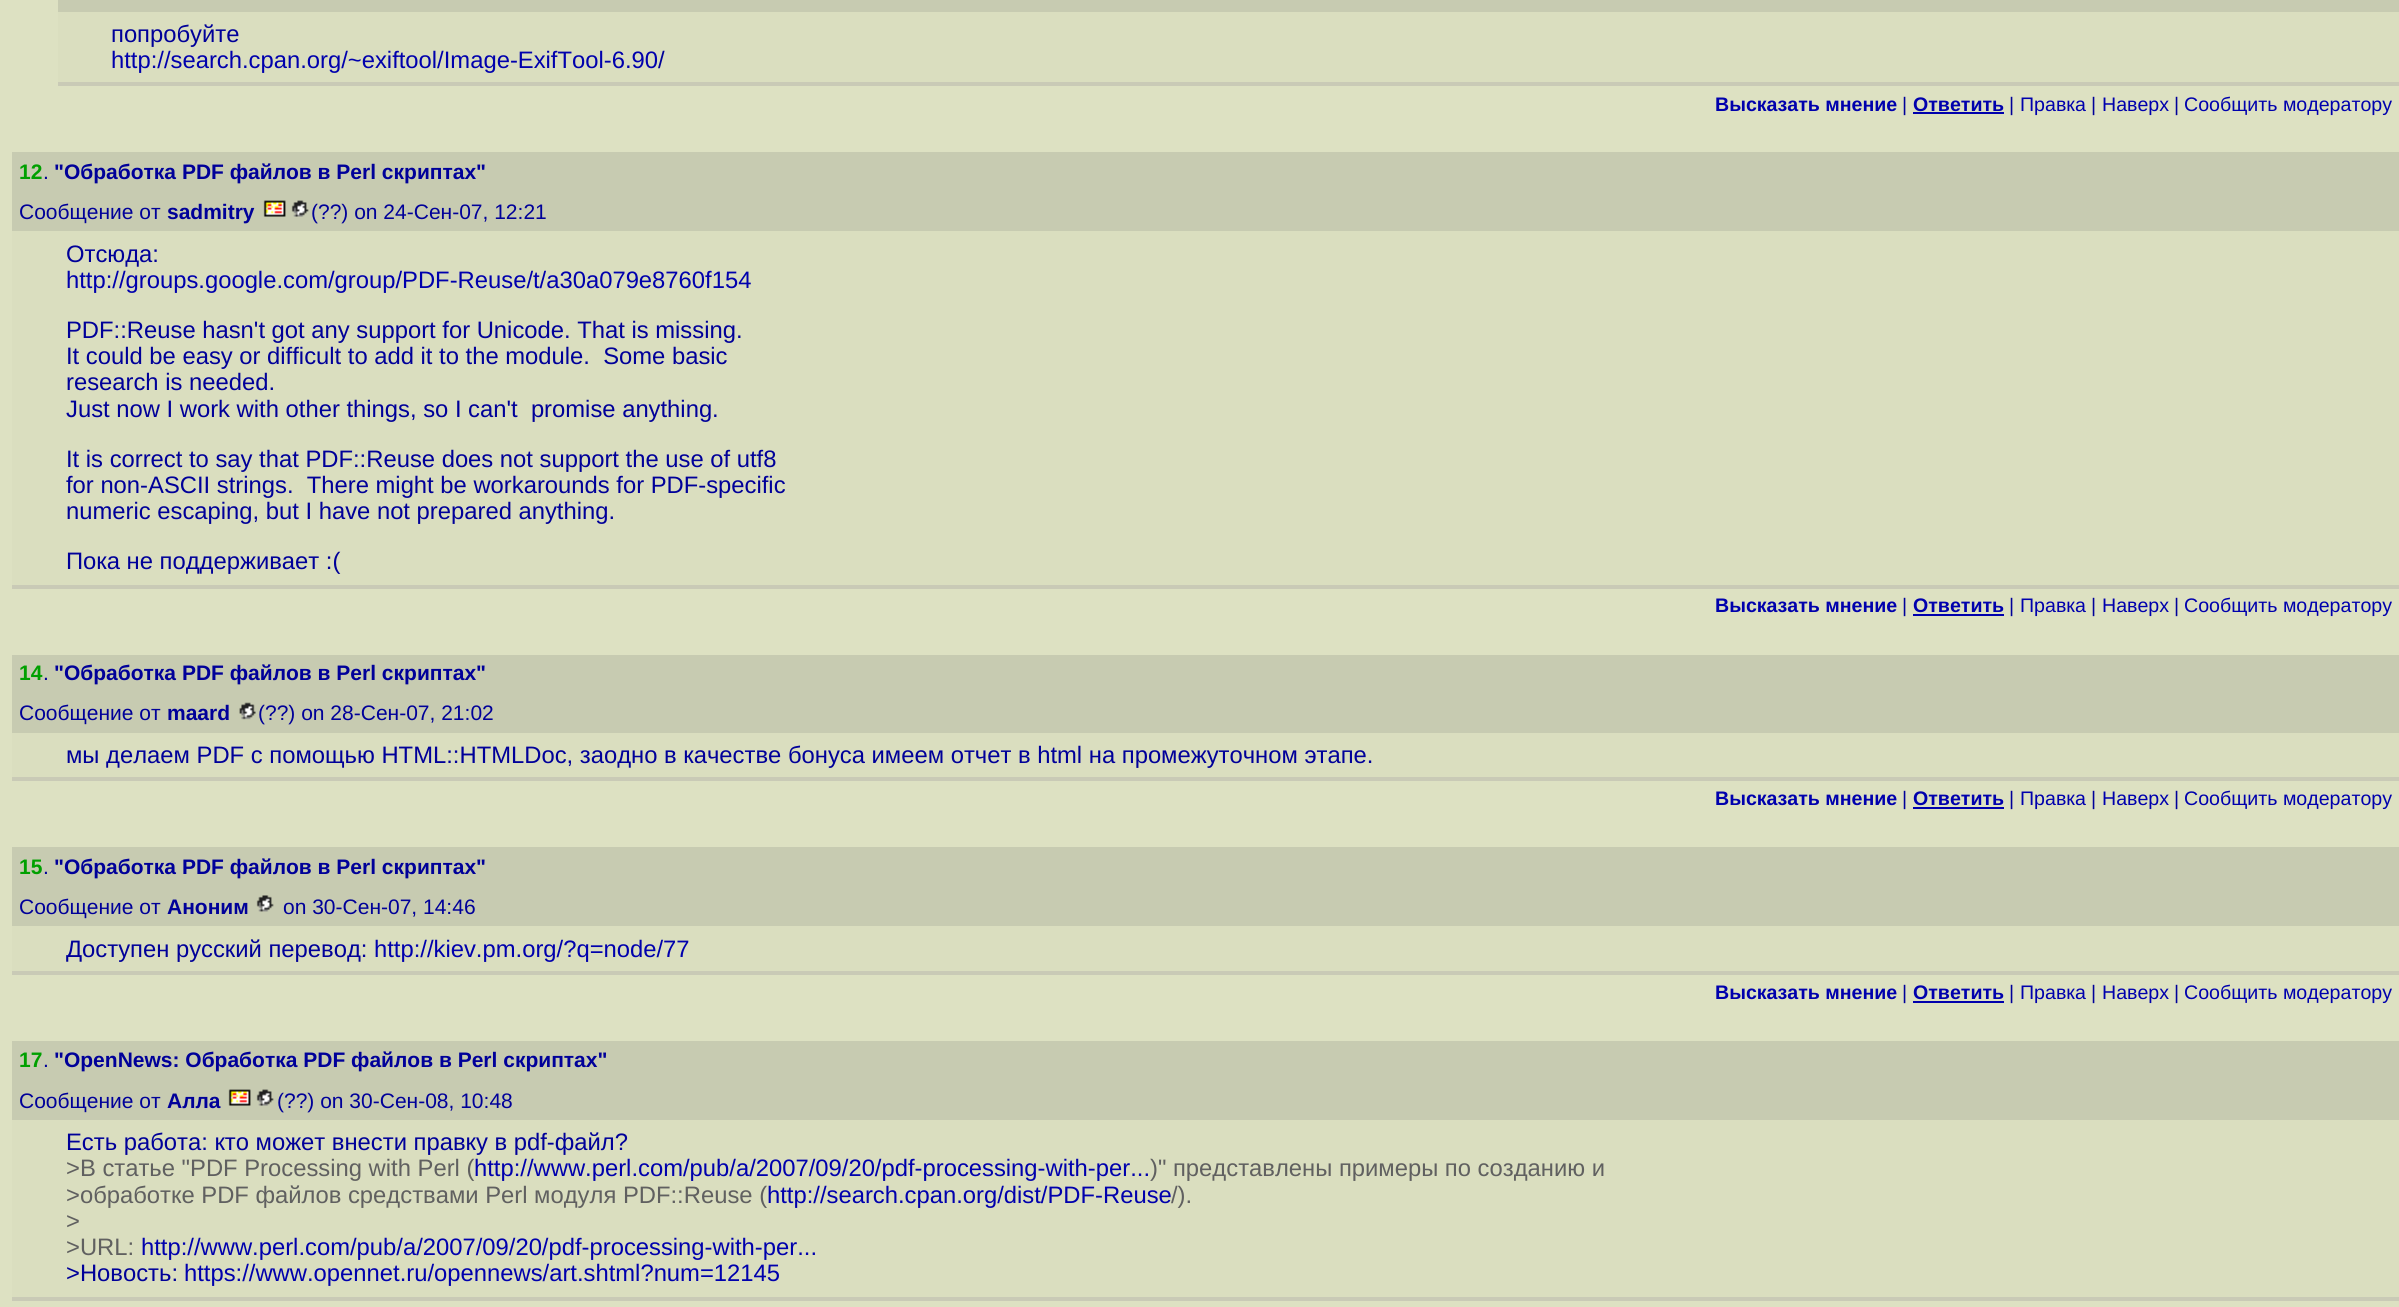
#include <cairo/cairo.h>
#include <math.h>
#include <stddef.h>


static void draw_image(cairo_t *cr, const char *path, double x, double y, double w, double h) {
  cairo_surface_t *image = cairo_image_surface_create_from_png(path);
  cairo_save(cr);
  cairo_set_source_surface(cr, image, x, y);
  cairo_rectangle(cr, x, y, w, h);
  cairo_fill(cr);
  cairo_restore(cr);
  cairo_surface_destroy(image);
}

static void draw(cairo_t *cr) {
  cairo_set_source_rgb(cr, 221 / 255.0, 225 / 255.0, 194 / 255.0);
  cairo_paint(cr);
  cairo_set_source_rgb(cr, 199 / 255.0, 203 / 255.0, 177 / 255.0);
  cairo_rectangle(cr, 58, 0, 2341, 12);
  cairo_fill(cr);
  cairo_set_source_rgb(cr, 218 / 255.0, 222 / 255.0, 191 / 255.0);
  cairo_rectangle(cr, 58, 12, 2341, 70);
  cairo_fill(cr);
  cairo_set_source_rgb(cr, 201 / 255.0, 202 / 255.0, 182 / 255.0);
  cairo_rectangle(cr, 58, 82, 2341, 4);
  cairo_fill(cr);
  cairo_set_source_rgb(cr, 0, 0, 173 / 255.0);
  cairo_rectangle(cr, 1913, 112, 91, 2);
  cairo_fill(cr);
  cairo_set_source_rgb(cr, 199 / 255.0, 203 / 255.0, 177 / 255.0);
  cairo_rectangle(cr, 12, 152, 2387, 79);
  cairo_fill(cr);
  draw_image(cr, "images/1.png", 263, 200, 23, 17);
  draw_image(cr, "images/2.png", 291, 200, 18, 17);
  cairo_set_source_rgb(cr, 218 / 255.0, 222 / 255.0, 191 / 255.0);
  cairo_rectangle(cr, 12, 231, 2387, 354);
  cairo_fill(cr);
  cairo_set_source_rgb(cr, 201 / 255.0, 202 / 255.0, 182 / 255.0);
  cairo_rectangle(cr, 12, 585, 2387, 4);
  cairo_fill(cr);
  cairo_set_source_rgb(cr, 0, 0, 173 / 255.0);
  cairo_rectangle(cr, 1913, 614, 91, 2);
  cairo_fill(cr);
  cairo_set_source_rgb(cr, 199 / 255.0, 203 / 255.0, 177 / 255.0);
  cairo_rectangle(cr, 12, 655, 2387, 78);
  cairo_fill(cr);
  draw_image(cr, "images/3.png", 239, 702, 17, 18);
  cairo_set_source_rgb(cr, 218 / 255.0, 222 / 255.0, 191 / 255.0);
  cairo_rectangle(cr, 12, 733, 2387, 44);
  cairo_fill(cr);
  cairo_set_source_rgb(cr, 201 / 255.0, 202 / 255.0, 182 / 255.0);
  cairo_rectangle(cr, 12, 777, 2387, 4);
  cairo_fill(cr);
  cairo_set_source_rgb(cr, 0, 0, 173 / 255.0);
  cairo_rectangle(cr, 1913, 807, 91, 2);
  cairo_fill(cr);
  cairo_set_source_rgb(cr, 199 / 255.0, 203 / 255.0, 177 / 255.0);
  cairo_rectangle(cr, 12, 847, 2387, 79);
  cairo_fill(cr);
  draw_image(cr, "images/4.png", 256, 895, 18, 17);
  cairo_set_source_rgb(cr, 218 / 255.0, 222 / 255.0, 191 / 255.0);
  cairo_rectangle(cr, 12, 926, 2387, 45);
  cairo_fill(cr);
  cairo_set_source_rgb(cr, 201 / 255.0, 202 / 255.0, 182 / 255.0);
  cairo_rectangle(cr, 12, 971, 2387, 4);
  cairo_fill(cr);
  cairo_set_source_rgb(cr, 0, 0, 173 / 255.0);
  cairo_rectangle(cr, 1913, 1001, 91, 2);
  cairo_fill(cr);
  cairo_set_source_rgb(cr, 199 / 255.0, 203 / 255.0, 177 / 255.0);
  cairo_rectangle(cr, 12, 1041, 2387, 79);
  cairo_fill(cr);
  draw_image(cr, "images/1.png", 228, 1089, 23, 17);
  draw_image(cr, "images/2.png", 256, 1089, 18, 17);
  cairo_set_source_rgb(cr, 218 / 255.0, 222 / 255.0, 191 / 255.0);
  cairo_rectangle(cr, 12, 1120, 2387, 177);
  cairo_fill(cr);
  cairo_set_source_rgb(cr, 201 / 255.0, 202 / 255.0, 182 / 255.0);
  cairo_rectangle(cr, 12, 1297, 2387, 4);
  cairo_fill(cr);
  cairo_select_font_face(cr, "Liberation Sans", CAIRO_FONT_SLANT_NORMAL, CAIRO_FONT_WEIGHT_NORMAL);
  cairo_set_font_size(cr, 23.8);
  cairo_set_source_rgb(cr, 0, 0, 153 / 255.0);
  cairo_move_to(cr, 111, 42);
  cairo_show_text(cr, "попробуйте");
  cairo_set_source_rgb(cr, 0, 0, 173 / 255.0);
  cairo_move_to(cr, 111, 68);
  cairo_show_text(cr, "http://search.cpan.org/~exiftool/Image-ExifTool-6.90");
  cairo_set_source_rgb(cr, 0, 0, 153 / 255.0);
  cairo_move_to(cr, 658, 68);
  cairo_show_text(cr, "/");
  cairo_select_font_face(cr, "Liberation Sans", CAIRO_FONT_SLANT_NORMAL, CAIRO_FONT_WEIGHT_BOLD);
  cairo_set_font_size(cr, 19.6);
  cairo_set_source_rgb(cr, 0, 0, 173 / 255.0);
  cairo_move_to(cr, 1715, 111);
  cairo_show_text(cr, "Высказать мнение");
  cairo_select_font_face(cr, "Liberation Sans", CAIRO_FONT_SLANT_NORMAL, CAIRO_FONT_WEIGHT_NORMAL);
  cairo_set_source_rgb(cr, 0, 0, 153 / 255.0);
  cairo_move_to(cr, 1902, 111);
  cairo_show_text(cr, "|");
  cairo_select_font_face(cr, "Liberation Sans", CAIRO_FONT_SLANT_NORMAL, CAIRO_FONT_WEIGHT_BOLD);
  cairo_set_source_rgb(cr, 0, 0, 173 / 255.0);
  cairo_move_to(cr, 1913, 111);
  cairo_show_text(cr, "Ответить");
  cairo_select_font_face(cr, "Liberation Sans", CAIRO_FONT_SLANT_NORMAL, CAIRO_FONT_WEIGHT_NORMAL);
  cairo_set_source_rgb(cr, 0, 0, 153 / 255.0);
  cairo_move_to(cr, 2009, 111);
  cairo_show_text(cr, "|");
  cairo_set_source_rgb(cr, 0, 0, 173 / 255.0);
  cairo_move_to(cr, 2020, 111);
  cairo_show_text(cr, "Правка");
  cairo_set_source_rgb(cr, 0, 0, 153 / 255.0);
  cairo_move_to(cr, 2091, 111);
  cairo_show_text(cr, "|");
  cairo_set_source_rgb(cr, 0, 0, 173 / 255.0);
  cairo_move_to(cr, 2102, 111);
  cairo_show_text(cr, "Наверх");
  cairo_set_source_rgb(cr, 0, 0, 153 / 255.0);
  cairo_move_to(cr, 2174, 111);
  cairo_show_text(cr, "|");
  cairo_set_source_rgb(cr, 0, 0, 173 / 255.0);
  cairo_move_to(cr, 2184, 111);
  cairo_show_text(cr, "Cообщить модератору");
  cairo_select_font_face(cr, "Liberation Sans", CAIRO_FONT_SLANT_NORMAL, CAIRO_FONT_WEIGHT_BOLD);
  cairo_set_font_size(cr, 21);
  cairo_set_source_rgb(cr, 0, 160 / 255.0, 0);
  cairo_move_to(cr, 19, 179);
  cairo_show_text(cr, "12");
  cairo_select_font_face(cr, "Liberation Sans", CAIRO_FONT_SLANT_NORMAL, CAIRO_FONT_WEIGHT_NORMAL);
  cairo_set_source_rgb(cr, 0, 0, 153 / 255.0);
  cairo_move_to(cr, 43, 179);
  cairo_show_text(cr, ".");
  cairo_select_font_face(cr, "Liberation Sans", CAIRO_FONT_SLANT_NORMAL, CAIRO_FONT_WEIGHT_BOLD);
  cairo_move_to(cr, 54, 179);
  cairo_show_text(cr, "\"Обработка PDF файлов в Perl скриптах\"");
  cairo_select_font_face(cr, "Liberation Sans", CAIRO_FONT_SLANT_NORMAL, CAIRO_FONT_WEIGHT_NORMAL);
  cairo_move_to(cr, 19, 219);
  cairo_show_text(cr, "Сообщение от");
  cairo_select_font_face(cr, "Liberation Sans", CAIRO_FONT_SLANT_NORMAL, CAIRO_FONT_WEIGHT_BOLD);
  cairo_move_to(cr, 167, 219);
  cairo_show_text(cr, "sadmitry");
  cairo_select_font_face(cr, "Liberation Sans", CAIRO_FONT_SLANT_NORMAL, CAIRO_FONT_WEIGHT_NORMAL);
  cairo_move_to(cr, 311, 219);
  cairo_show_text(cr, "(?\077) on 24-Сен-07, 12:21");
  cairo_set_font_size(cr, 23.8);
  cairo_move_to(cr, 66, 262);
  cairo_show_text(cr, "Отсюда:");
  cairo_set_source_rgb(cr, 0, 0, 173 / 255.0);
  cairo_move_to(cr, 66, 288);
  cairo_show_text(cr, "http://groups.google.com/group/PDF-Reuse/t/a30a079e8760f154");
  cairo_set_source_rgb(cr, 0, 0, 153 / 255.0);
  cairo_move_to(cr, 66, 338);
  cairo_show_text(cr, "PDF::Reuse hasn't got any support for Unicode. That is missing.");
  cairo_move_to(cr, 66, 364);
  cairo_show_text(cr, "It could be easy or difficult to add it to the module.  Some basic");
  cairo_move_to(cr, 66, 390);
  cairo_show_text(cr, "research is needed.");
  cairo_move_to(cr, 66, 417);
  cairo_show_text(cr, "Just now I work with other things, so I can't  promise anything.");
  cairo_move_to(cr, 66, 467);
  cairo_show_text(cr, "It is correct to say that PDF::Reuse does not support the use of utf8");
  cairo_move_to(cr, 66, 493);
  cairo_show_text(cr, "for non-ASCII strings.  There might be workarounds for PDF-specific");
  cairo_move_to(cr, 66, 519);
  cairo_show_text(cr, "numeric escaping, but I have not prepared anything.");
  cairo_move_to(cr, 66, 569);
  cairo_show_text(cr, "Пока не поддерживает :(");
  cairo_select_font_face(cr, "Liberation Sans", CAIRO_FONT_SLANT_NORMAL, CAIRO_FONT_WEIGHT_BOLD);
  cairo_set_font_size(cr, 19.6);
  cairo_set_source_rgb(cr, 0, 0, 173 / 255.0);
  cairo_move_to(cr, 1715, 612);
  cairo_show_text(cr, "Высказать мнение");
  cairo_select_font_face(cr, "Liberation Sans", CAIRO_FONT_SLANT_NORMAL, CAIRO_FONT_WEIGHT_NORMAL);
  cairo_set_source_rgb(cr, 0, 0, 153 / 255.0);
  cairo_move_to(cr, 1902, 612);
  cairo_show_text(cr, "|");
  cairo_select_font_face(cr, "Liberation Sans", CAIRO_FONT_SLANT_NORMAL, CAIRO_FONT_WEIGHT_BOLD);
  cairo_set_source_rgb(cr, 0, 0, 173 / 255.0);
  cairo_move_to(cr, 1913, 612);
  cairo_show_text(cr, "Ответить");
  cairo_select_font_face(cr, "Liberation Sans", CAIRO_FONT_SLANT_NORMAL, CAIRO_FONT_WEIGHT_NORMAL);
  cairo_set_source_rgb(cr, 0, 0, 153 / 255.0);
  cairo_move_to(cr, 2009, 612);
  cairo_show_text(cr, "|");
  cairo_set_source_rgb(cr, 0, 0, 173 / 255.0);
  cairo_move_to(cr, 2020, 612);
  cairo_show_text(cr, "Правка");
  cairo_set_source_rgb(cr, 0, 0, 153 / 255.0);
  cairo_move_to(cr, 2091, 612);
  cairo_show_text(cr, "|");
  cairo_set_source_rgb(cr, 0, 0, 173 / 255.0);
  cairo_move_to(cr, 2102, 612);
  cairo_show_text(cr, "Наверх");
  cairo_set_source_rgb(cr, 0, 0, 153 / 255.0);
  cairo_move_to(cr, 2174, 612);
  cairo_show_text(cr, "|");
  cairo_set_source_rgb(cr, 0, 0, 173 / 255.0);
  cairo_move_to(cr, 2184, 612);
  cairo_show_text(cr, "Cообщить модератору");
  cairo_select_font_face(cr, "Liberation Sans", CAIRO_FONT_SLANT_NORMAL, CAIRO_FONT_WEIGHT_BOLD);
  cairo_set_font_size(cr, 21);
  cairo_set_source_rgb(cr, 0, 160 / 255.0, 0);
  cairo_move_to(cr, 19, 680);
  cairo_show_text(cr, "14");
  cairo_select_font_face(cr, "Liberation Sans", CAIRO_FONT_SLANT_NORMAL, CAIRO_FONT_WEIGHT_NORMAL);
  cairo_set_source_rgb(cr, 0, 0, 153 / 255.0);
  cairo_move_to(cr, 43, 680);
  cairo_show_text(cr, ".");
  cairo_select_font_face(cr, "Liberation Sans", CAIRO_FONT_SLANT_NORMAL, CAIRO_FONT_WEIGHT_BOLD);
  cairo_move_to(cr, 54, 680);
  cairo_show_text(cr, "\"Обработка PDF файлов в Perl скриптах\"");
  cairo_select_font_face(cr, "Liberation Sans", CAIRO_FONT_SLANT_NORMAL, CAIRO_FONT_WEIGHT_NORMAL);
  cairo_move_to(cr, 19, 720);
  cairo_show_text(cr, "Сообщение от");
  cairo_select_font_face(cr, "Liberation Sans", CAIRO_FONT_SLANT_NORMAL, CAIRO_FONT_WEIGHT_BOLD);
  cairo_move_to(cr, 167, 720);
  cairo_show_text(cr, "maard");
  cairo_select_font_face(cr, "Liberation Sans", CAIRO_FONT_SLANT_NORMAL, CAIRO_FONT_WEIGHT_NORMAL);
  cairo_move_to(cr, 258, 720);
  cairo_show_text(cr, "(?\077) on 28-Сен-07, 21:02");
  cairo_set_font_size(cr, 23.8);
  cairo_move_to(cr, 66, 763);
  cairo_show_text(cr, "мы делаем PDF с помощью HTML::HTMLDoc, заодно в качестве бонуса имеем отчет в html на промежуточном этапе.");
  cairo_select_font_face(cr, "Liberation Sans", CAIRO_FONT_SLANT_NORMAL, CAIRO_FONT_WEIGHT_BOLD);
  cairo_set_font_size(cr, 19.6);
  cairo_set_source_rgb(cr, 0, 0, 173 / 255.0);
  cairo_move_to(cr, 1715, 805);
  cairo_show_text(cr, "Высказать мнение");
  cairo_select_font_face(cr, "Liberation Sans", CAIRO_FONT_SLANT_NORMAL, CAIRO_FONT_WEIGHT_NORMAL);
  cairo_set_source_rgb(cr, 0, 0, 153 / 255.0);
  cairo_move_to(cr, 1902, 805);
  cairo_show_text(cr, "|");
  cairo_select_font_face(cr, "Liberation Sans", CAIRO_FONT_SLANT_NORMAL, CAIRO_FONT_WEIGHT_BOLD);
  cairo_set_source_rgb(cr, 0, 0, 173 / 255.0);
  cairo_move_to(cr, 1913, 805);
  cairo_show_text(cr, "Ответить");
  cairo_select_font_face(cr, "Liberation Sans", CAIRO_FONT_SLANT_NORMAL, CAIRO_FONT_WEIGHT_NORMAL);
  cairo_set_source_rgb(cr, 0, 0, 153 / 255.0);
  cairo_move_to(cr, 2009, 805);
  cairo_show_text(cr, "|");
  cairo_set_source_rgb(cr, 0, 0, 173 / 255.0);
  cairo_move_to(cr, 2020, 805);
  cairo_show_text(cr, "Правка");
  cairo_set_source_rgb(cr, 0, 0, 153 / 255.0);
  cairo_move_to(cr, 2091, 805);
  cairo_show_text(cr, "|");
  cairo_set_source_rgb(cr, 0, 0, 173 / 255.0);
  cairo_move_to(cr, 2102, 805);
  cairo_show_text(cr, "Наверх");
  cairo_set_source_rgb(cr, 0, 0, 153 / 255.0);
  cairo_move_to(cr, 2174, 805);
  cairo_show_text(cr, "|");
  cairo_set_source_rgb(cr, 0, 0, 173 / 255.0);
  cairo_move_to(cr, 2184, 805);
  cairo_show_text(cr, "Cообщить модератору");
  cairo_select_font_face(cr, "Liberation Sans", CAIRO_FONT_SLANT_NORMAL, CAIRO_FONT_WEIGHT_BOLD);
  cairo_set_font_size(cr, 21);
  cairo_set_source_rgb(cr, 0, 160 / 255.0, 0);
  cairo_move_to(cr, 19, 874);
  cairo_show_text(cr, "15");
  cairo_select_font_face(cr, "Liberation Sans", CAIRO_FONT_SLANT_NORMAL, CAIRO_FONT_WEIGHT_NORMAL);
  cairo_set_source_rgb(cr, 0, 0, 153 / 255.0);
  cairo_move_to(cr, 43, 874);
  cairo_show_text(cr, ".");
  cairo_select_font_face(cr, "Liberation Sans", CAIRO_FONT_SLANT_NORMAL, CAIRO_FONT_WEIGHT_BOLD);
  cairo_move_to(cr, 54, 874);
  cairo_show_text(cr, "\"Обработка PDF файлов в Perl скриптах\"");
  cairo_select_font_face(cr, "Liberation Sans", CAIRO_FONT_SLANT_NORMAL, CAIRO_FONT_WEIGHT_NORMAL);
  cairo_move_to(cr, 19, 914);
  cairo_show_text(cr, "Сообщение от");
  cairo_select_font_face(cr, "Liberation Sans", CAIRO_FONT_SLANT_NORMAL, CAIRO_FONT_WEIGHT_BOLD);
  cairo_move_to(cr, 167, 914);
  cairo_show_text(cr, "Аноним");
  cairo_select_font_face(cr, "Liberation Sans", CAIRO_FONT_SLANT_NORMAL, CAIRO_FONT_WEIGHT_NORMAL);
  cairo_move_to(cr, 283, 914);
  cairo_show_text(cr, "on 30-Сен-07, 14:46");
  cairo_set_font_size(cr, 23.8);
  cairo_move_to(cr, 66, 957);
  cairo_show_text(cr, "Доступен русский перевод:");
  cairo_set_source_rgb(cr, 0, 0, 173 / 255.0);
  cairo_move_to(cr, 374, 957);
  cairo_show_text(cr, "http://kiev.pm.org/?q=node/77");
  cairo_select_font_face(cr, "Liberation Sans", CAIRO_FONT_SLANT_NORMAL, CAIRO_FONT_WEIGHT_BOLD);
  cairo_set_font_size(cr, 19.6);
  cairo_move_to(cr, 1715, 999);
  cairo_show_text(cr, "Высказать мнение");
  cairo_select_font_face(cr, "Liberation Sans", CAIRO_FONT_SLANT_NORMAL, CAIRO_FONT_WEIGHT_NORMAL);
  cairo_set_source_rgb(cr, 0, 0, 153 / 255.0);
  cairo_move_to(cr, 1902, 999);
  cairo_show_text(cr, "|");
  cairo_select_font_face(cr, "Liberation Sans", CAIRO_FONT_SLANT_NORMAL, CAIRO_FONT_WEIGHT_BOLD);
  cairo_set_source_rgb(cr, 0, 0, 173 / 255.0);
  cairo_move_to(cr, 1913, 999);
  cairo_show_text(cr, "Ответить");
  cairo_select_font_face(cr, "Liberation Sans", CAIRO_FONT_SLANT_NORMAL, CAIRO_FONT_WEIGHT_NORMAL);
  cairo_set_source_rgb(cr, 0, 0, 153 / 255.0);
  cairo_move_to(cr, 2009, 999);
  cairo_show_text(cr, "|");
  cairo_set_source_rgb(cr, 0, 0, 173 / 255.0);
  cairo_move_to(cr, 2020, 999);
  cairo_show_text(cr, "Правка");
  cairo_set_source_rgb(cr, 0, 0, 153 / 255.0);
  cairo_move_to(cr, 2091, 999);
  cairo_show_text(cr, "|");
  cairo_set_source_rgb(cr, 0, 0, 173 / 255.0);
  cairo_move_to(cr, 2102, 999);
  cairo_show_text(cr, "Наверх");
  cairo_set_source_rgb(cr, 0, 0, 153 / 255.0);
  cairo_move_to(cr, 2174, 999);
  cairo_show_text(cr, "|");
  cairo_set_source_rgb(cr, 0, 0, 173 / 255.0);
  cairo_move_to(cr, 2184, 999);
  cairo_show_text(cr, "Cообщить модератору");
  cairo_select_font_face(cr, "Liberation Sans", CAIRO_FONT_SLANT_NORMAL, CAIRO_FONT_WEIGHT_BOLD);
  cairo_set_font_size(cr, 21);
  cairo_set_source_rgb(cr, 0, 160 / 255.0, 0);
  cairo_move_to(cr, 19, 1067);
  cairo_show_text(cr, "17");
  cairo_select_font_face(cr, "Liberation Sans", CAIRO_FONT_SLANT_NORMAL, CAIRO_FONT_WEIGHT_NORMAL);
  cairo_set_source_rgb(cr, 0, 0, 153 / 255.0);
  cairo_move_to(cr, 43, 1067);
  cairo_show_text(cr, ".");
  cairo_select_font_face(cr, "Liberation Sans", CAIRO_FONT_SLANT_NORMAL, CAIRO_FONT_WEIGHT_BOLD);
  cairo_move_to(cr, 54, 1067);
  cairo_show_text(cr, "\"OpenNews: Обработка PDF файлов в Perl скриптах\"");
  cairo_select_font_face(cr, "Liberation Sans", CAIRO_FONT_SLANT_NORMAL, CAIRO_FONT_WEIGHT_NORMAL);
  cairo_move_to(cr, 19, 1108);
  cairo_show_text(cr, "Сообщение от");
  cairo_select_font_face(cr, "Liberation Sans", CAIRO_FONT_SLANT_NORMAL, CAIRO_FONT_WEIGHT_BOLD);
  cairo_move_to(cr, 167, 1108);
  cairo_show_text(cr, "Алла");
  cairo_select_font_face(cr, "Liberation Sans", CAIRO_FONT_SLANT_NORMAL, CAIRO_FONT_WEIGHT_NORMAL);
  cairo_move_to(cr, 277, 1108);
  cairo_show_text(cr, "(?\077) on 30-Сен-08, 10:48");
  cairo_set_font_size(cr, 23.8);
  cairo_move_to(cr, 66, 1150);
  cairo_show_text(cr, "Есть работа: кто может внести правку в pdf-файл?");
  cairo_set_source_rgb(cr, 96 / 255.0, 96 / 255.0, 96 / 255.0);
  cairo_move_to(cr, 66, 1176);
  cairo_show_text(cr, ">В статье \"PDF Processing with Perl (");
  cairo_set_source_rgb(cr, 0, 0, 173 / 255.0);
  cairo_move_to(cr, 474, 1176);
  cairo_show_text(cr, "http://www.perl.com/pub/a/2007/09/20/pdf-processing-with-per...");
  cairo_set_source_rgb(cr, 96 / 255.0, 96 / 255.0, 96 / 255.0);
  cairo_move_to(cr, 1150, 1176);
  cairo_show_text(cr, ")\" представлены примеры по созданию и");
  cairo_move_to(cr, 66, 1203);
  cairo_show_text(cr, ">обработке PDF файлов средствами Perl модуля PDF::Reuse (");
  cairo_set_source_rgb(cr, 0, 0, 173 / 255.0);
  cairo_move_to(cr, 767, 1203);
  cairo_show_text(cr, "http://search.cpan.org/dist/PDF-Reuse");
  cairo_set_source_rgb(cr, 96 / 255.0, 96 / 255.0, 96 / 255.0);
  cairo_move_to(cr, 1171, 1203);
  cairo_show_text(cr, "/).");
  cairo_move_to(cr, 66, 1229);
  cairo_show_text(cr, ">");
  cairo_move_to(cr, 66, 1255);
  cairo_show_text(cr, ">URL:");
  cairo_set_source_rgb(cr, 0, 0, 173 / 255.0);
  cairo_move_to(cr, 141, 1255);
  cairo_show_text(cr, "http://www.perl.com/pub/a/2007/09/20/pdf-processing-with-per...");
  cairo_set_source_rgb(cr, 0, 0, 153 / 255.0);
  cairo_move_to(cr, 66, 1281);
  cairo_show_text(cr, ">Новость:");
  cairo_set_source_rgb(cr, 0, 0, 173 / 255.0);
  cairo_move_to(cr, 184, 1281);
  cairo_show_text(cr, "https://www.opennet.ru/opennews/art.shtml?num=12145");
}

int main(void) {
  cairo_surface_t *surface = cairo_image_surface_create(CAIRO_FORMAT_RGB24, 2399, 1307);
  cairo_t *cr = cairo_create(surface);
  cairo_font_options_t *options = cairo_font_options_create();
  cairo_font_options_set_hint_metrics(options, CAIRO_HINT_METRICS_OFF);
  cairo_font_options_set_hint_style(options, CAIRO_HINT_STYLE_NONE);
  cairo_set_font_options(cr, options);
  cairo_set_miter_limit(cr, 4);
  draw(cr);
  cairo_surface_write_to_png(surface, "out.png");
  cairo_font_options_destroy(options);
  cairo_destroy(cr);
  cairo_surface_destroy(surface);
  return 0;
}
